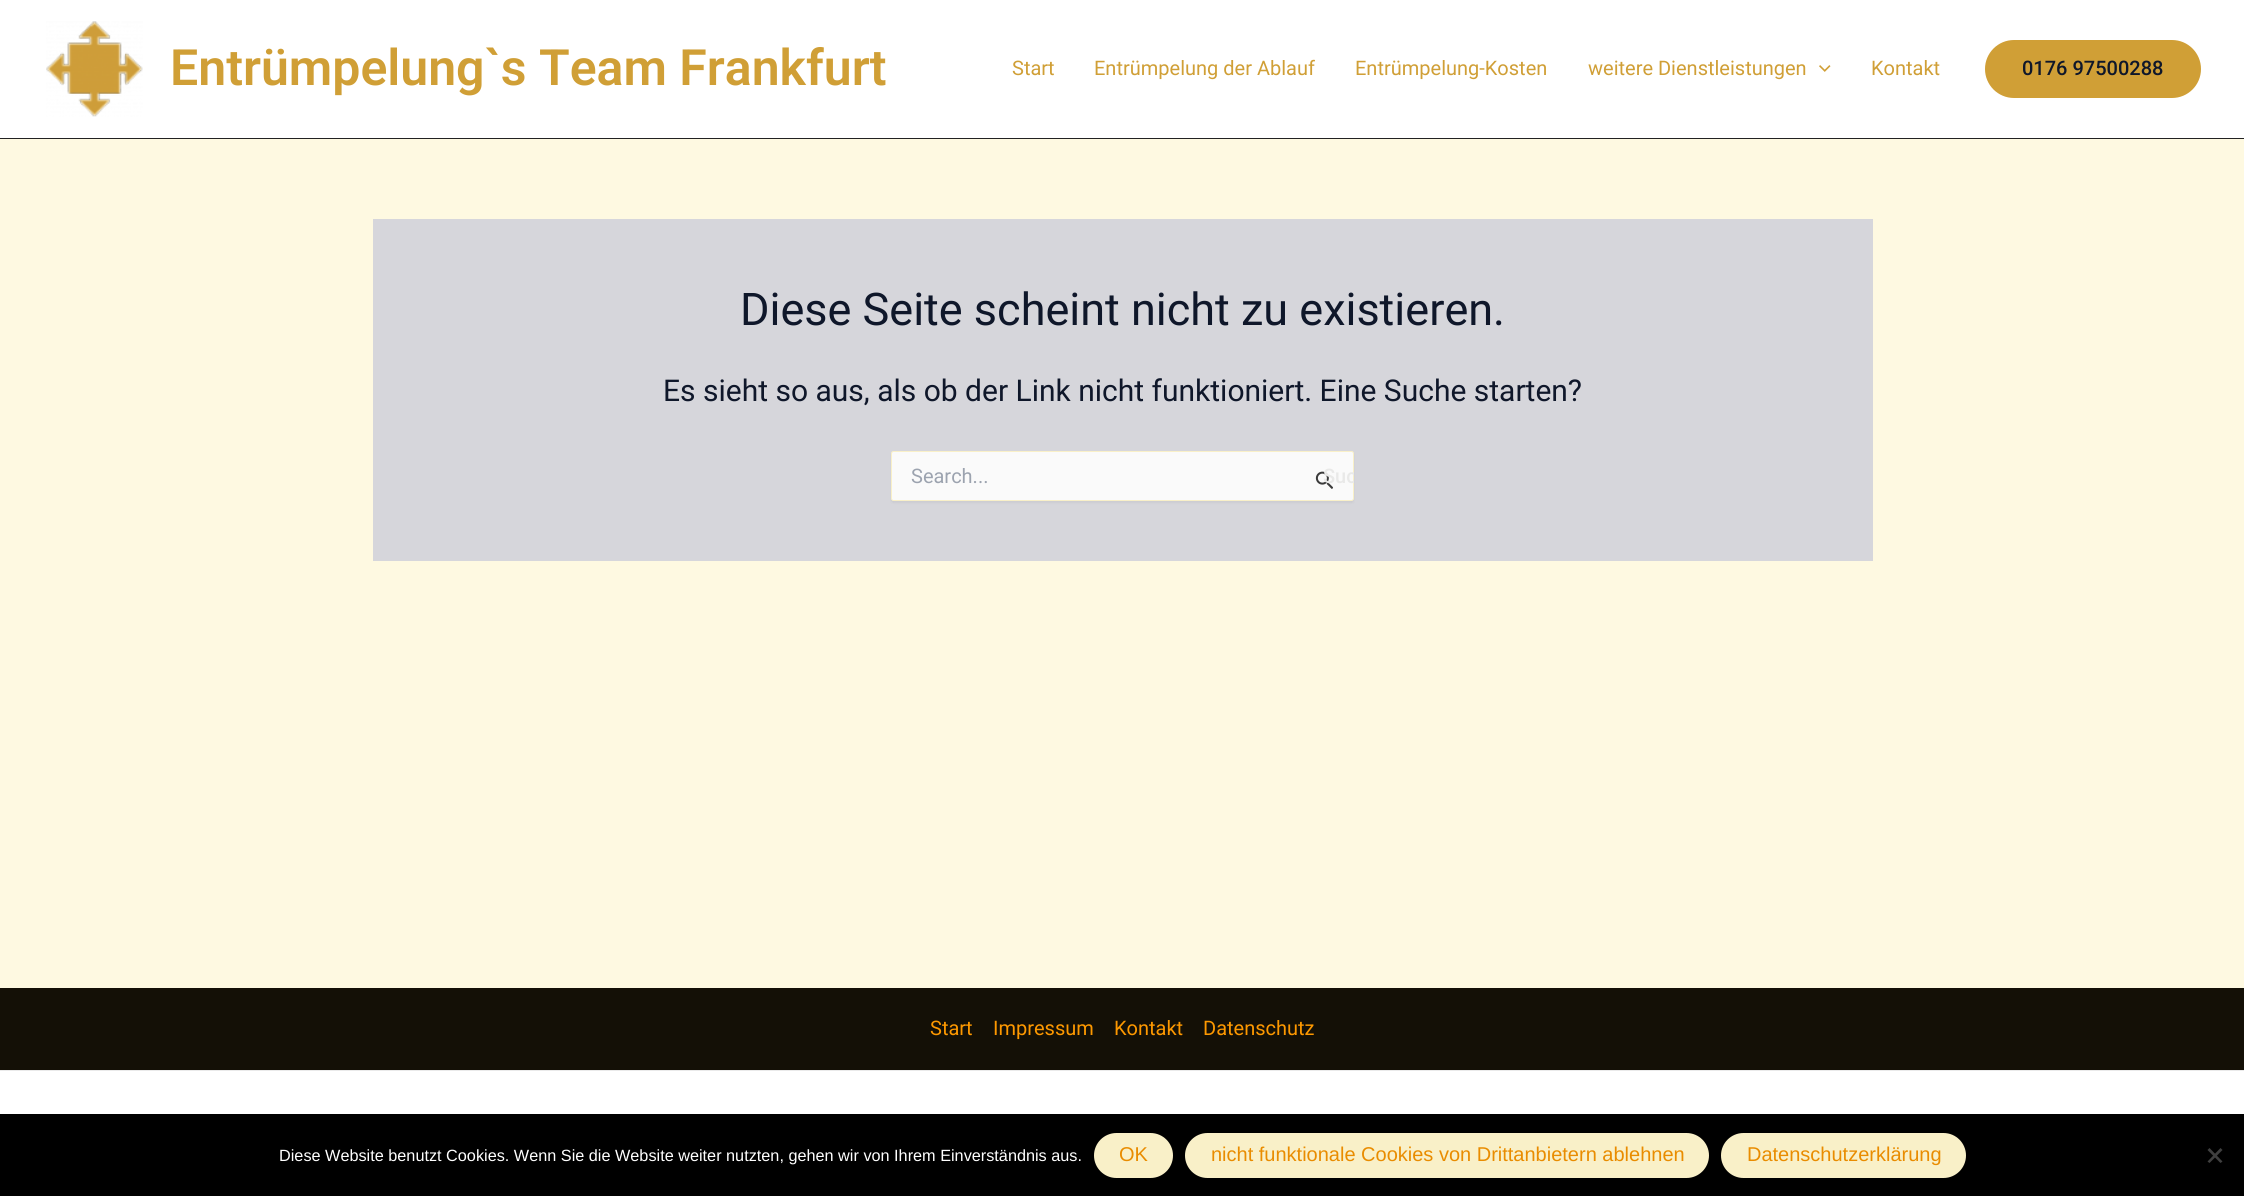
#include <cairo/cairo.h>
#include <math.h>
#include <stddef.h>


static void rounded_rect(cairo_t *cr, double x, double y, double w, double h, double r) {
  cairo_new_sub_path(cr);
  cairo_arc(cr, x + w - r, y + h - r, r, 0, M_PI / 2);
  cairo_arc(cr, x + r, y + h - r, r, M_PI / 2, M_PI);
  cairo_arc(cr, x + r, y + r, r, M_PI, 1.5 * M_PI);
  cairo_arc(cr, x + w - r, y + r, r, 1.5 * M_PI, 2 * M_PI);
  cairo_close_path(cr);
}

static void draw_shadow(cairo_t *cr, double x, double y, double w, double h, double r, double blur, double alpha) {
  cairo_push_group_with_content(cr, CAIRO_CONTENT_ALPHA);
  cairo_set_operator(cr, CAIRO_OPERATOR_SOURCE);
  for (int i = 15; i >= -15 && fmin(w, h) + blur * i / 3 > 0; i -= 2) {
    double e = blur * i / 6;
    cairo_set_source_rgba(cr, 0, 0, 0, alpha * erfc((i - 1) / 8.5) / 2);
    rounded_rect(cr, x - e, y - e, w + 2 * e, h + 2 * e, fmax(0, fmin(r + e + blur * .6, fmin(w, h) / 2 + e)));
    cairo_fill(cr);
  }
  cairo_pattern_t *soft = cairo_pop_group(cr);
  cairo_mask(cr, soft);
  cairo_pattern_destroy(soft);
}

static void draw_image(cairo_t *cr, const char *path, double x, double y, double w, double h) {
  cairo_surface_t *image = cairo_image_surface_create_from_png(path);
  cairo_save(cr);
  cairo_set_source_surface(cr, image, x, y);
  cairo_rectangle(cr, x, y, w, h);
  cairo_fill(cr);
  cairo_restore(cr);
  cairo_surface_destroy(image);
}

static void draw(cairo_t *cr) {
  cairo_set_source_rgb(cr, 254 / 255.0, 249 / 255.0, 225 / 255.0);
  cairo_paint(cr);
  cairo_set_source_rgb(cr, 1, 1, 1);
  cairo_rectangle(cr, 0, 0, 2244, 138);
  cairo_fill(cr);
  cairo_set_source_rgb(cr, 34 / 255.0, 34 / 255.0, 34 / 255.0);
  cairo_rectangle(cr, 0, 138, 2244, 1);
  cairo_fill(cr);
  draw_image(cr, "images/1.png", 46, 21, 97, 96);
  draw_image(cr, "images/2.png", 1819, 65, 12, 7);
  cairo_set_source_rgb(cr, 208 / 255.0, 159 / 255.0, 54 / 255.0);
  rounded_rect(cr, 1985, 40, 216, 58, 29);
  cairo_fill(cr);
  cairo_set_source_rgb(cr, 214 / 255.0, 214 / 255.0, 219 / 255.0);
  cairo_rectangle(cr, 373, 219, 1500, 342);
  cairo_fill(cr);
  cairo_set_source_rgb(cr, 0, 0, 0);
  draw_shadow(cr, 891, 453, 463, 50, 2.5, 1, 0.05);
  cairo_set_source_rgb(cr, 250 / 255.0, 250 / 255.0, 250 / 255.0);
  rounded_rect(cr, 891.5, 451.5, 462, 49, 2);
  cairo_fill_preserve(cr);
  cairo_set_source_rgb(cr, 249 / 255.0, 240 / 255.0, 200 / 255.0);
  cairo_set_line_width(cr, 1);
  cairo_stroke(cr);
  draw_image(cr, "images/3.png", 1315, 471, 18, 18);
  cairo_set_source_rgb(cr, 20 / 255.0, 16 / 255.0, 6 / 255.0);
  cairo_rectangle(cr, 0, 988, 2244, 82);
  cairo_fill(cr);
  cairo_set_source_rgb(cr, 1, 1, 1);
  cairo_rectangle(cr, 0, 1071, 2244, 43);
  cairo_fill(cr);
  cairo_set_source_rgb(cr, 234 / 255.0, 234 / 255.0, 234 / 255.0);
  cairo_rectangle(cr, 0, 1070, 2244, 1);
  cairo_fill(cr);
  cairo_set_source_rgb(cr, 0, 0, 0);
  cairo_rectangle(cr, 0, 1114, 2244, 82);
  cairo_fill(cr);
  cairo_set_source_rgb(cr, 249 / 255.0, 240 / 255.0, 200 / 255.0);
  rounded_rect(cr, 1094, 1133, 79, 45, 22.5);
  cairo_fill(cr);
  rounded_rect(cr, 1185, 1133, 524, 45, 22.5);
  cairo_fill(cr);
  rounded_rect(cr, 1721, 1133, 245, 45, 22.5);
  cairo_fill(cr);
  cairo_set_source_rgb(cr, 64 / 255.0, 64 / 255.0, 64 / 255.0);
  cairo_new_path(cr);
  cairo_move_to(cr, 2220.5, 1148);
  cairo_line_to(cr, 2222.5, 1150);
  cairo_line_to(cr, 2209.5, 1163);
  cairo_line_to(cr, 2207.5, 1161.5);
  cairo_close_path(cr);
  cairo_fill(cr);
  cairo_new_path(cr);
  cairo_move_to(cr, 2207.5, 1150);
  cairo_line_to(cr, 2209.5, 1148);
  cairo_line_to(cr, 2222.5, 1161.5);
  cairo_line_to(cr, 2220.5, 1163);
  cairo_close_path(cr);
  cairo_fill(cr);
  cairo_select_font_face(cr, "Roboto SemiBold", CAIRO_FONT_SLANT_NORMAL, CAIRO_FONT_WEIGHT_NORMAL);
  cairo_set_font_size(cr, 50);
  cairo_set_source_rgb(cr, 208 / 255.0, 159 / 255.0, 54 / 255.0);
  cairo_move_to(cr, 170, 85);
  cairo_show_text(cr, "Entrümpelung`s Team Frankfurt");
  cairo_select_font_face(cr, "Roboto", CAIRO_FONT_SLANT_NORMAL, CAIRO_FONT_WEIGHT_NORMAL);
  cairo_set_font_size(cr, 20);
  cairo_move_to(cr, 1012, 75);
  cairo_show_text(cr, "Start");
  cairo_move_to(cr, 1094, 75);
  cairo_show_text(cr, "Entrümpelung der Ablauf");
  cairo_move_to(cr, 1355, 75);
  cairo_show_text(cr, "Entrümpelung-Kosten");
  cairo_move_to(cr, 1588, 75);
  cairo_show_text(cr, "weitere Dienstleistungen");
  cairo_move_to(cr, 1871, 75);
  cairo_show_text(cr, "Kontakt");
  cairo_select_font_face(cr, "Roboto Medium", CAIRO_FONT_SLANT_NORMAL, CAIRO_FONT_WEIGHT_NORMAL);
  cairo_set_source_rgb(cr, 15 / 255.0, 23 / 255.0, 42 / 255.0);
  cairo_move_to(cr, 2022, 75);
  cairo_show_text(cr, "0176 97500288");
  cairo_select_font_face(cr, "Roboto", CAIRO_FONT_SLANT_NORMAL, CAIRO_FONT_WEIGHT_NORMAL);
  cairo_set_font_size(cr, 45);
  cairo_move_to(cr, 740, 325);
  cairo_show_text(cr, "Diese Seite scheint nicht zu existieren.");
  cairo_set_font_size(cr, 30);
  cairo_move_to(cr, 663, 401);
  cairo_show_text(cr, "Es sieht so aus, als ob der Link nicht funktioniert. Eine Suche starten?");
  cairo_set_font_size(cr, 20);
  cairo_set_source_rgb(cr, 156 / 255.0, 163 / 255.0, 175 / 255.0);
  cairo_move_to(cr, 911, 483);
  cairo_show_text(cr, "Search...");
  cairo_save(cr);
  rounded_rect(cr, 1298, 451, 56, 53, 2.5);
  cairo_clip(cr);
  cairo_select_font_face(cr, "Roboto Medium", CAIRO_FONT_SLANT_NORMAL, CAIRO_FONT_WEIGHT_NORMAL);
  cairo_set_source_rgb(cr, 233 / 255.0, 233 / 255.0, 232 / 255.0);
  cairo_move_to(cr, 1323, 483);
  cairo_show_text(cr, "Suc");
  cairo_restore(cr);
  cairo_set_source_rgb(cr, 253 / 255.0, 152 / 255.0, 0);
  cairo_move_to(cr, 930, 1035);
  cairo_show_text(cr, "Start");
  cairo_move_to(cr, 993, 1035);
  cairo_show_text(cr, "Impressum");
  cairo_move_to(cr, 1114, 1035);
  cairo_show_text(cr, "Kontakt");
  cairo_move_to(cr, 1203, 1035);
  cairo_show_text(cr, "Datenschutz");
  cairo_select_font_face(cr, "Liberation Sans", CAIRO_FONT_SLANT_NORMAL, CAIRO_FONT_WEIGHT_NORMAL);
  cairo_set_font_size(cr, 16.25);
  cairo_set_source_rgb(cr, 1, 1, 1);
  cairo_move_to(cr, 279, 1161);
  cairo_show_text(cr, "Diese Website benutzt Cookies. Wenn Sie die Website weiter nutzten, gehen wir von Ihrem Einverständnis aus.");
  cairo_set_font_size(cr, 20);
  cairo_set_source_rgb(cr, 233 / 255.0, 140 / 255.0, 0);
  cairo_move_to(cr, 1119, 1161);
  cairo_show_text(cr, "OK");
  cairo_move_to(cr, 1211, 1161);
  cairo_show_text(cr, "nicht funktionale Cookies von Drittanbietern ablehnen");
  cairo_move_to(cr, 1747, 1161);
  cairo_show_text(cr, "Datenschutzerklärung");
}

int main(void) {
  cairo_surface_t *surface = cairo_image_surface_create(CAIRO_FORMAT_RGB24, 2244, 1196);
  cairo_t *cr = cairo_create(surface);
  cairo_font_options_t *options = cairo_font_options_create();
  cairo_font_options_set_hint_metrics(options, CAIRO_HINT_METRICS_OFF);
  cairo_font_options_set_hint_style(options, CAIRO_HINT_STYLE_NONE);
  cairo_set_font_options(cr, options);
  cairo_set_miter_limit(cr, 4);
  draw(cr);
  cairo_surface_write_to_png(surface, "out.png");
  cairo_font_options_destroy(options);
  cairo_destroy(cr);
  cairo_surface_destroy(surface);
  return 0;
}
